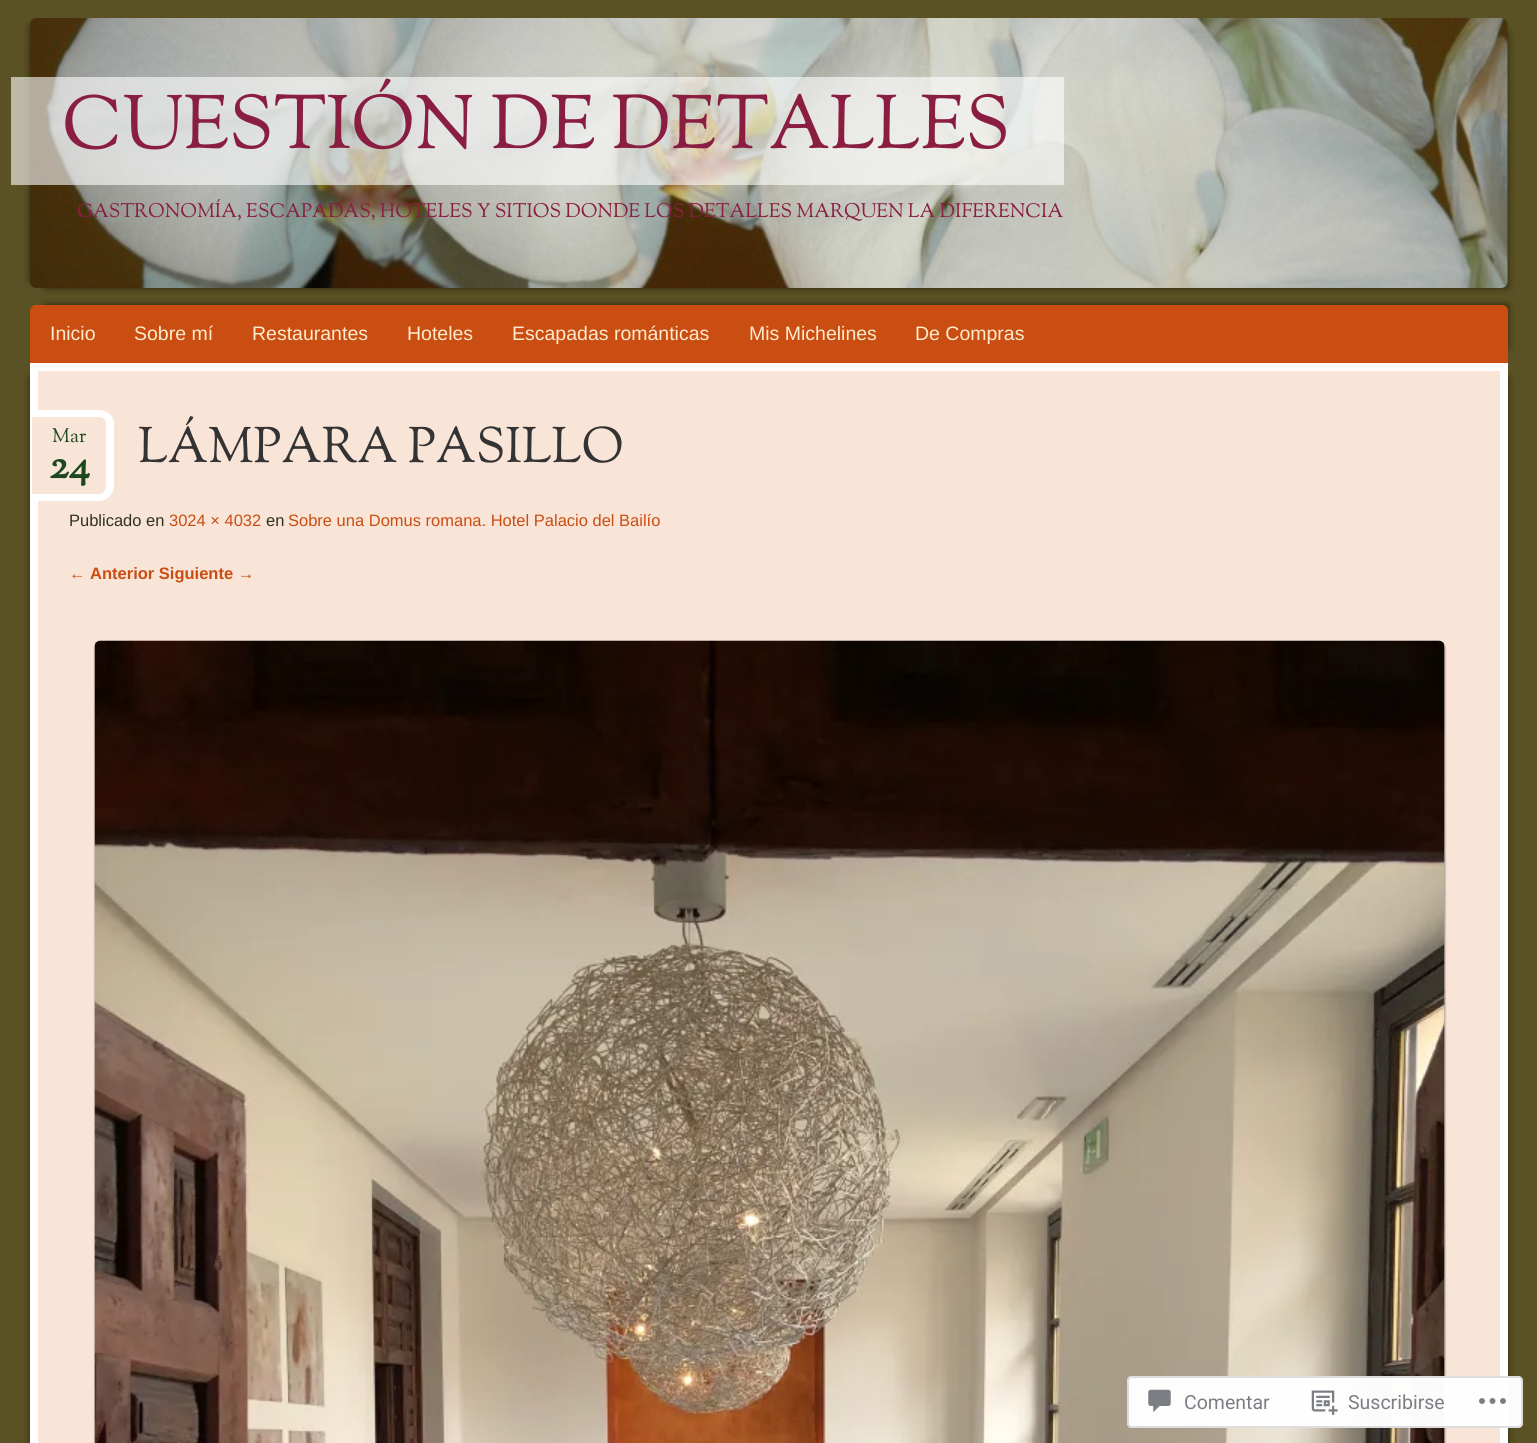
#include <cairo/cairo.h>
#include <math.h>
#include <stddef.h>


static void rounded_rect(cairo_t *cr, double x, double y, double w, double h, double r) {
  cairo_new_sub_path(cr);
  cairo_arc(cr, x + w - r, y + h - r, r, 0, M_PI / 2);
  cairo_arc(cr, x + r, y + h - r, r, M_PI / 2, M_PI);
  cairo_arc(cr, x + r, y + r, r, M_PI, 1.5 * M_PI);
  cairo_arc(cr, x + w - r, y + r, r, 1.5 * M_PI, 2 * M_PI);
  cairo_close_path(cr);
}

static void draw_shadow(cairo_t *cr, double x, double y, double w, double h, double r, double blur, double alpha) {
  cairo_push_group_with_content(cr, CAIRO_CONTENT_ALPHA);
  cairo_set_operator(cr, CAIRO_OPERATOR_SOURCE);
  for (int i = 15; i >= -15 && fmin(w, h) + blur * i / 3 > 0; i -= 2) {
    double e = blur * i / 6;
    cairo_set_source_rgba(cr, 0, 0, 0, alpha * erfc((i - 1) / 8.5) / 2);
    rounded_rect(cr, x - e, y - e, w + 2 * e, h + 2 * e, fmax(0, fmin(r + e + blur * .6, fmin(w, h) / 2 + e)));
    cairo_fill(cr);
  }
  cairo_pattern_t *soft = cairo_pop_group(cr);
  cairo_mask(cr, soft);
  cairo_pattern_destroy(soft);
}

static void draw_image(cairo_t *cr, const char *path, double x, double y, double w, double h) {
  cairo_surface_t *image = cairo_image_surface_create_from_png(path);
  cairo_save(cr);
  cairo_set_source_surface(cr, image, x, y);
  cairo_rectangle(cr, x, y, w, h);
  cairo_fill(cr);
  cairo_restore(cr);
  cairo_surface_destroy(image);
}

static void draw(cairo_t *cr) {
  cairo_set_source_rgb(cr, 90 / 255.0, 82 / 255.0, 36 / 255.0);
  cairo_paint(cr);
  cairo_set_source_rgb(cr, 0, 0, 0);
  draw_shadow(cr, 30, 26, 1463, 255, 0, 4, 0.5);
  draw_shadow(cr, 45, 33, 1463, 255, 0, 4, 0.5);
  draw_image(cr, "images/1.png", 30, 18, 1478, 270);
  cairo_set_source_rgba(cr, 1, 1, 1, 0.6);
  cairo_rectangle(cr, 11, 77, 1053, 108);
  cairo_fill(cr);
  cairo_set_source_rgb(cr, 0, 0, 0);
  draw_shadow(cr, 45, 305, 1463, 43, 0, 4, 0.5);
  cairo_set_source_rgb(cr, 202 / 255.0, 77 / 255.0, 17 / 255.0);
  cairo_new_path(cr);
  cairo_move_to(cr, 36, 305);
  cairo_line_to(cr, 1502, 305);
  cairo_curve_to(cr, 1505.5, 305, 1508, 307.5, 1508, 311);
  cairo_line_to(cr, 1508, 363);
  cairo_line_to(cr, 30, 363);
  cairo_line_to(cr, 30, 311);
  cairo_curve_to(cr, 30, 307.5, 32.5, 305, 36, 305);
  cairo_close_path(cr);
  cairo_fill(cr);
  cairo_set_source_rgb(cr, 0, 0, 0);
  draw_shadow(cr, 30, 378, 1463, 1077, 0, 4, 0.5);
  draw_shadow(cr, 45, 378, 1463, 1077, 0, 4, 0.5);
  cairo_set_source_rgb(cr, 249 / 255.0, 228 / 255.0, 216 / 255.0);
  cairo_rectangle(cr, 34, 367, 1470, 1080);
  cairo_fill_preserve(cr);
  cairo_set_source_rgb(cr, 1, 1, 1);
  cairo_set_line_width(cr, 8);
  cairo_stroke(cr);
  cairo_set_source_rgb(cr, 249 / 255.0, 228 / 255.0, 216 / 255.0);
  cairo_new_path(cr);
  cairo_move_to(cr, 32, 417);
  cairo_line_to(cr, 99, 417);
  cairo_curve_to(cr, 103.5, 417, 107, 420.5, 107, 425);
  cairo_line_to(cr, 107, 486);
  cairo_curve_to(cr, 107, 490.5, 103.5, 494, 99, 494);
  cairo_line_to(cr, 32, 494);
  cairo_close_path(cr);
  cairo_fill(cr);
  cairo_set_source_rgb(cr, 1, 1, 1);
  cairo_set_fill_rule(cr, CAIRO_FILL_RULE_EVEN_ODD);
  cairo_new_path(cr);
  cairo_move_to(cr, 32, 410);
  cairo_line_to(cr, 99, 410);
  cairo_curve_to(cr, 107, 410, 114, 416, 114, 424);
  cairo_line_to(cr, 114, 486);
  cairo_curve_to(cr, 114, 494, 107, 501, 99, 501);
  cairo_line_to(cr, 32, 501);
  cairo_close_path(cr);
  cairo_move_to(cr, 32, 417);
  cairo_line_to(cr, 99, 417);
  cairo_curve_to(cr, 103, 417, 106, 420, 106, 424);
  cairo_line_to(cr, 106, 486);
  cairo_curve_to(cr, 106, 490, 103, 494, 99, 494);
  cairo_line_to(cr, 32, 494);
  cairo_close_path(cr);
  cairo_fill(cr);
  cairo_set_source_rgb(cr, 0, 0, 0);
  draw_shadow(cr, 95, 642, 1350, 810, 6, 1, 0.4);
  draw_image(cr, "images/2.png", 94, 640, 1351, 803);
  cairo_set_source_rgba(cr, 1, 1, 1, 0.98);
  rounded_rect(cr, 1127, 1376, 396, 52, 5);
  cairo_fill(cr);
  rounded_rect(cr, 1128, 1377, 394, 50, 4);
  cairo_set_source_rgba(cr, 220 / 255.0, 220 / 255.0, 222 / 255.0, 0.98);
  cairo_set_line_width(cr, 2);
  cairo_stroke(cr);
  draw_image(cr, "images/3.png", 1148, 1389, 23, 24);
  draw_image(cr, "images/4.png", 1311, 1390, 27, 25);
  draw_image(cr, "images/5.png", 1479, 1398, 27, 6);
  cairo_select_font_face(cr, "Sorts Mill Goudy", CAIRO_FONT_SLANT_NORMAL, CAIRO_FONT_WEIGHT_NORMAL);
  cairo_set_font_size(cr, 75);
  cairo_set_source_rgb(cr, 137 / 255.0, 30 / 255.0, 66 / 255.0);
  cairo_move_to(cr, 62, 148);
  cairo_show_text(cr, "CUESTIÓN DE DETALLES");
  cairo_set_font_size(cr, 19.5);
  cairo_move_to(cr, 77, 217);
  cairo_show_text(cr, "GASTRONOMÍA, ESCAPADAS, HOTELES Y SITIOS DONDE LOS DETALLES MARQUEN LA DIFERENCIA");
  cairo_select_font_face(cr, "Liberation Sans", CAIRO_FONT_SLANT_NORMAL, CAIRO_FONT_WEIGHT_NORMAL);
  cairo_set_source_rgb(cr, 1, 235 / 255.0, 206 / 255.0);
  cairo_move_to(cr, 50, 340);
  cairo_show_text(cr, "Inicio");
  cairo_move_to(cr, 134, 340);
  cairo_show_text(cr, "Sobre mí");
  cairo_move_to(cr, 252, 340);
  cairo_show_text(cr, "Restaurantes");
  cairo_move_to(cr, 407, 340);
  cairo_show_text(cr, "Hoteles");
  cairo_move_to(cr, 512, 340);
  cairo_show_text(cr, "Escapadas románticas");
  cairo_move_to(cr, 749, 340);
  cairo_show_text(cr, "Mis Michelines");
  cairo_move_to(cr, 915, 340);
  cairo_show_text(cr, "De Compras");
  cairo_select_font_face(cr, "Sorts Mill Goudy", CAIRO_FONT_SLANT_NORMAL, CAIRO_FONT_WEIGHT_NORMAL);
  cairo_set_source_rgb(cr, 28 / 255.0, 72 / 255.0, 29 / 255.0);
  cairo_move_to(cr, 52, 442);
  cairo_show_text(cr, "Mar");
  cairo_select_font_face(cr, "Sorts Mill Goudy", CAIRO_FONT_SLANT_NORMAL, CAIRO_FONT_WEIGHT_BOLD);
  cairo_set_font_size(cr, 42);
  cairo_move_to(cr, 49, 478);
  cairo_show_text(cr, "24");
  cairo_select_font_face(cr, "Sorts Mill Goudy", CAIRO_FONT_SLANT_NORMAL, CAIRO_FONT_WEIGHT_NORMAL);
  cairo_set_font_size(cr, 49.5);
  cairo_set_source_rgb(cr, 51 / 255.0, 51 / 255.0, 51 / 255.0);
  cairo_move_to(cr, 138, 462);
  cairo_show_text(cr, "LÁMPARA PASILLO");
  cairo_select_font_face(cr, "Liberation Sans", CAIRO_FONT_SLANT_NORMAL, CAIRO_FONT_WEIGHT_NORMAL);
  cairo_set_font_size(cr, 16.5);
  cairo_set_source_rgb(cr, 47 / 255.0, 51 / 255.0, 28 / 255.0);
  cairo_move_to(cr, 69, 526);
  cairo_show_text(cr, "Publicado en");
  cairo_set_source_rgb(cr, 202 / 255.0, 77 / 255.0, 17 / 255.0);
  cairo_move_to(cr, 169, 526);
  cairo_show_text(cr, "3024 × 4032");
  cairo_set_source_rgb(cr, 47 / 255.0, 51 / 255.0, 28 / 255.0);
  cairo_move_to(cr, 266, 526);
  cairo_show_text(cr, "en");
  cairo_set_source_rgb(cr, 202 / 255.0, 77 / 255.0, 17 / 255.0);
  cairo_move_to(cr, 288, 526);
  cairo_show_text(cr, "Sobre una Domus romana. Hotel Palacio del Bailío");
  cairo_select_font_face(cr, "Liberation Sans", CAIRO_FONT_SLANT_NORMAL, CAIRO_FONT_WEIGHT_BOLD);
  cairo_move_to(cr, 69, 579);
  cairo_show_text(cr, "← Anterior Siguiente →");
  cairo_select_font_face(cr, "Roboto", CAIRO_FONT_SLANT_NORMAL, CAIRO_FONT_WEIGHT_NORMAL);
  cairo_set_font_size(cr, 19.5);
  cairo_set_source_rgb(cr, 123 / 255.0, 127 / 255.0, 132 / 255.0);
  cairo_move_to(cr, 1184, 1409);
  cairo_show_text(cr, "Comentar");
  cairo_move_to(cr, 1348, 1409);
  cairo_show_text(cr, "Suscribirse");
}

int main(void) {
  cairo_surface_t *surface = cairo_image_surface_create(CAIRO_FORMAT_RGB24, 1537, 1443);
  cairo_t *cr = cairo_create(surface);
  cairo_font_options_t *options = cairo_font_options_create();
  cairo_font_options_set_hint_metrics(options, CAIRO_HINT_METRICS_OFF);
  cairo_font_options_set_hint_style(options, CAIRO_HINT_STYLE_NONE);
  cairo_set_font_options(cr, options);
  cairo_set_miter_limit(cr, 4);
  draw(cr);
  cairo_surface_write_to_png(surface, "out.png");
  cairo_font_options_destroy(options);
  cairo_destroy(cr);
  cairo_surface_destroy(surface);
  return 0;
}
